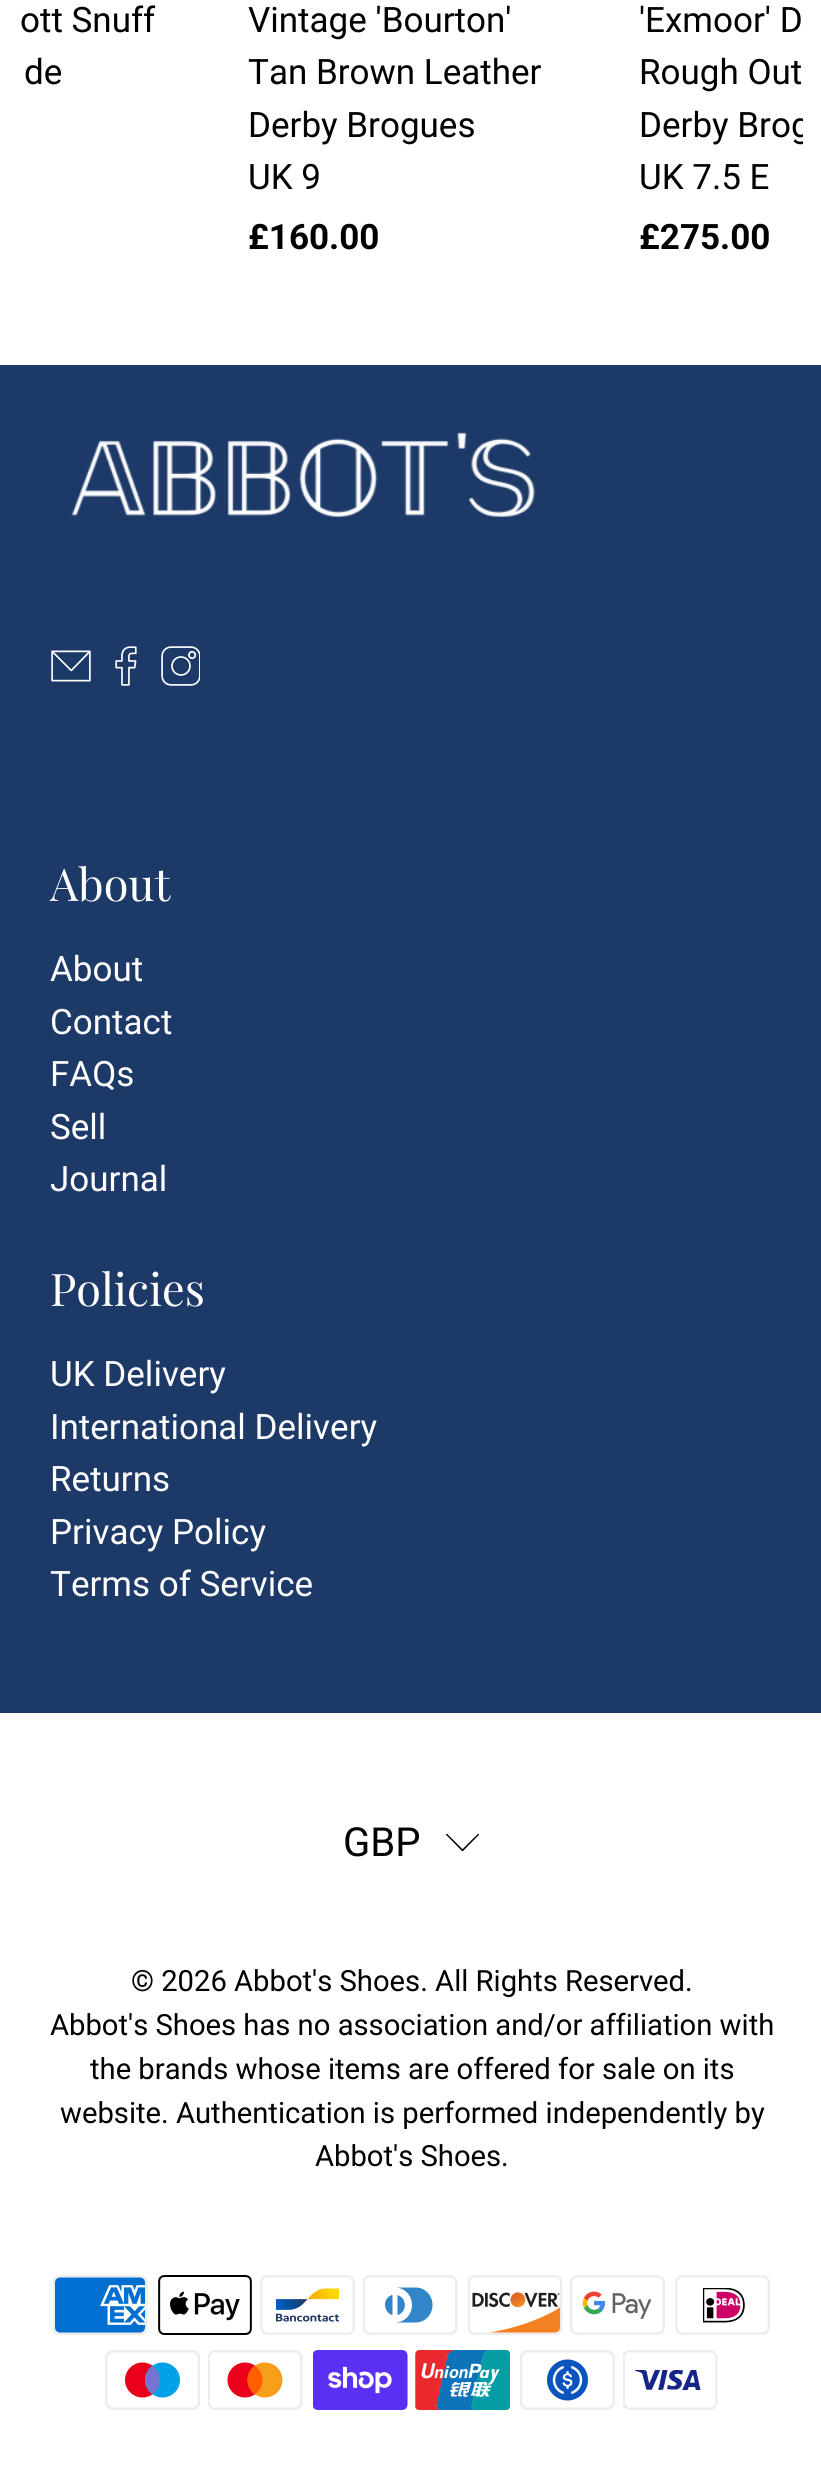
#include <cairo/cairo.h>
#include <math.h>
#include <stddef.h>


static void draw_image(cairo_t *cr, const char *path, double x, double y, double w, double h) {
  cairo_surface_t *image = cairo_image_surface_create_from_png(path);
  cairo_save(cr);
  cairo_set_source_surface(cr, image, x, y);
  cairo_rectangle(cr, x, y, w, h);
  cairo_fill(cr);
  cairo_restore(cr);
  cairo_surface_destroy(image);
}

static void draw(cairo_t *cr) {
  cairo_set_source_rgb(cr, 1, 1, 1);
  cairo_paint(cr);
  cairo_set_source_rgb(cr, 28 / 255.0, 57 / 255.0, 104 / 255.0);
  cairo_rectangle(cr, 0, 365, 821, 1348);
  cairo_fill(cr);
  draw_image(cr, "images/1.png", 71, 432, 465, 86);
  draw_image(cr, "images/2.png", 51, 650, 40, 32);
  draw_image(cr, "images/3.png", 115, 646, 22, 40);
  draw_image(cr, "images/4.png", 161, 646, 39, 40);
  draw_image(cr, "images/5.png", 446, 1833, 33, 19);
  draw_image(cr, "images/6.png", 53, 2275, 95, 60);
  draw_image(cr, "images/7.png", 158, 2275, 94, 60);
  draw_image(cr, "images/8.png", 260, 2275, 95, 60);
  draw_image(cr, "images/9.png", 363, 2275, 95, 60);
  draw_image(cr, "images/10.png", 468, 2275, 95, 60);
  draw_image(cr, "images/11.png", 570, 2275, 95, 60);
  draw_image(cr, "images/12.png", 675, 2275, 95, 60);
  draw_image(cr, "images/13.png", 105, 2350, 95, 60);
  draw_image(cr, "images/14.png", 208, 2350, 95, 60);
  draw_image(cr, "images/15.png", 313, 2350, 95, 60);
  draw_image(cr, "images/16.png", 415, 2350, 95, 60);
  draw_image(cr, "images/17.png", 520, 2350, 95, 60);
  draw_image(cr, "images/18.png", 623, 2350, 95, 60);
  cairo_select_font_face(cr, "Roboto", CAIRO_FONT_SLANT_NORMAL, CAIRO_FONT_WEIGHT_NORMAL);
  cairo_set_font_size(cr, 35);
  cairo_set_source_rgb(cr, 0, 0, 0);
  cairo_move_to(cr, 20, 32);
  cairo_show_text(cr, "ott Snuff");
  cairo_move_to(cr, 24, 84);
  cairo_show_text(cr, "de");
  cairo_move_to(cr, 248, 32);
  cairo_show_text(cr, "Vintage 'Bourton'");
  cairo_move_to(cr, 248, 84);
  cairo_show_text(cr, "Tan Brown Leather");
  cairo_move_to(cr, 248, 137);
  cairo_show_text(cr, "Derby Brogues");
  cairo_move_to(cr, 248, 189);
  cairo_show_text(cr, "UK 9");
  cairo_select_font_face(cr, "Roboto", CAIRO_FONT_SLANT_NORMAL, CAIRO_FONT_WEIGHT_BOLD);
  cairo_move_to(cr, 248, 249);
  cairo_show_text(cr, "£160.00");
  cairo_select_font_face(cr, "Roboto", CAIRO_FONT_SLANT_NORMAL, CAIRO_FONT_WEIGHT_NORMAL);
  cairo_move_to(cr, 639, 32);
  cairo_show_text(cr, "'Exmoor' D");
  cairo_move_to(cr, 639, 84);
  cairo_show_text(cr, "Rough Out");
  cairo_save(cr);
  cairo_rectangle(cr, 20, 0, 783, 315);
  cairo_clip(cr);
  cairo_move_to(cr, 639, 137);
  cairo_show_text(cr, "Derby Brog");
  cairo_restore(cr);
  cairo_move_to(cr, 639, 189);
  cairo_show_text(cr, "UK 7.5 E");
  cairo_select_font_face(cr, "Roboto", CAIRO_FONT_SLANT_NORMAL, CAIRO_FONT_WEIGHT_BOLD);
  cairo_move_to(cr, 639, 249);
  cairo_show_text(cr, "£275.00");
  cairo_select_font_face(cr, "Playfair Display", CAIRO_FONT_SLANT_NORMAL, CAIRO_FONT_WEIGHT_NORMAL);
  cairo_set_font_size(cr, 45);
  cairo_set_source_rgb(cr, 1, 1, 1);
  cairo_move_to(cr, 50, 901);
  cairo_show_text(cr, "About");
  cairo_select_font_face(cr, "Roboto", CAIRO_FONT_SLANT_NORMAL, CAIRO_FONT_WEIGHT_NORMAL);
  cairo_set_font_size(cr, 35);
  cairo_move_to(cr, 50, 981);
  cairo_show_text(cr, "About");
  cairo_move_to(cr, 50, 1034);
  cairo_show_text(cr, "Contact");
  cairo_move_to(cr, 50, 1086);
  cairo_show_text(cr, "FAQs");
  cairo_move_to(cr, 50, 1139);
  cairo_show_text(cr, "Sell");
  cairo_move_to(cr, 50, 1191);
  cairo_show_text(cr, "Journal");
  cairo_select_font_face(cr, "Playfair Display", CAIRO_FONT_SLANT_NORMAL, CAIRO_FONT_WEIGHT_NORMAL);
  cairo_set_font_size(cr, 45);
  cairo_move_to(cr, 50, 1306);
  cairo_show_text(cr, "Policies");
  cairo_select_font_face(cr, "Roboto", CAIRO_FONT_SLANT_NORMAL, CAIRO_FONT_WEIGHT_NORMAL);
  cairo_set_font_size(cr, 35);
  cairo_move_to(cr, 50, 1386);
  cairo_show_text(cr, "UK Delivery");
  cairo_move_to(cr, 50, 1439);
  cairo_show_text(cr, "International Delivery");
  cairo_move_to(cr, 50, 1491);
  cairo_show_text(cr, "Returns");
  cairo_move_to(cr, 50, 1544);
  cairo_show_text(cr, "Privacy Policy");
  cairo_move_to(cr, 50, 1596);
  cairo_show_text(cr, "Terms of Service");
  cairo_set_font_size(cr, 40);
  cairo_set_source_rgb(cr, 0, 0, 0);
  cairo_move_to(cr, 343, 1856);
  cairo_show_text(cr, "GBP");
  cairo_set_font_size(cr, 29.2);
  cairo_move_to(cr, 131, 1991);
  cairo_show_text(cr, "© 2026 Abbot's Shoes. All Rights Reserved.");
  cairo_move_to(cr, 50, 2035);
  cairo_show_text(cr, "Abbot's Shoes has no association and/or affiliation with");
  cairo_move_to(cr, 90, 2079);
  cairo_show_text(cr, "the brands whose items are offered for sale on its");
  cairo_move_to(cr, 60, 2123);
  cairo_show_text(cr, "website. Authentication is performed independently by");
  cairo_move_to(cr, 315, 2166);
  cairo_show_text(cr, "Abbot's Shoes.");
}

int main(void) {
  cairo_surface_t *surface = cairo_image_surface_create(CAIRO_FORMAT_RGB24, 821, 2475);
  cairo_t *cr = cairo_create(surface);
  cairo_font_options_t *options = cairo_font_options_create();
  cairo_font_options_set_hint_metrics(options, CAIRO_HINT_METRICS_OFF);
  cairo_font_options_set_hint_style(options, CAIRO_HINT_STYLE_NONE);
  cairo_set_font_options(cr, options);
  cairo_set_miter_limit(cr, 4);
  draw(cr);
  cairo_surface_write_to_png(surface, "out.png");
  cairo_font_options_destroy(options);
  cairo_destroy(cr);
  cairo_surface_destroy(surface);
  return 0;
}
